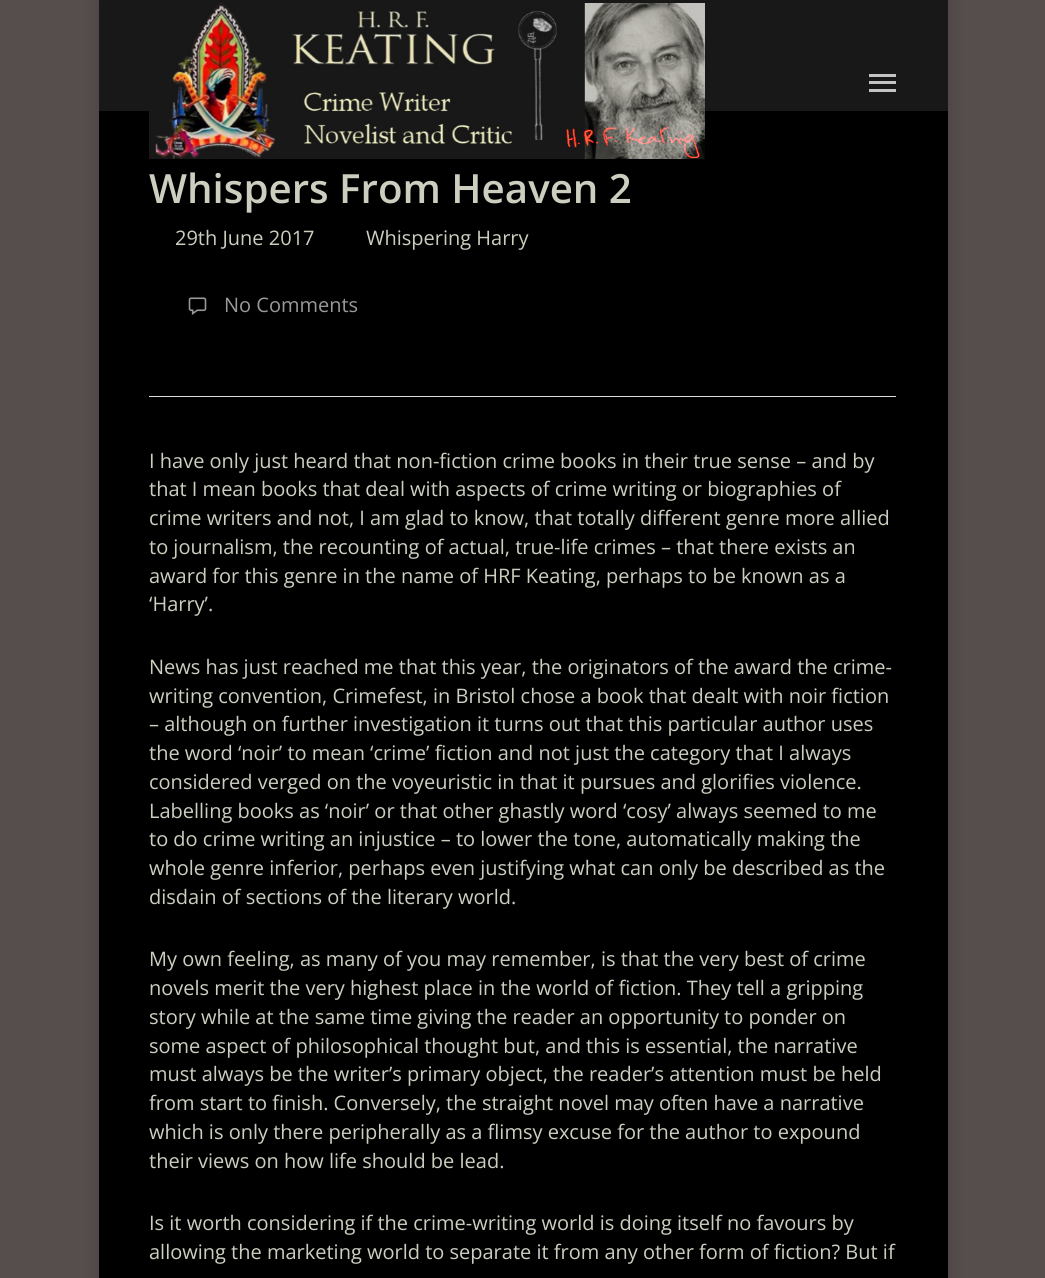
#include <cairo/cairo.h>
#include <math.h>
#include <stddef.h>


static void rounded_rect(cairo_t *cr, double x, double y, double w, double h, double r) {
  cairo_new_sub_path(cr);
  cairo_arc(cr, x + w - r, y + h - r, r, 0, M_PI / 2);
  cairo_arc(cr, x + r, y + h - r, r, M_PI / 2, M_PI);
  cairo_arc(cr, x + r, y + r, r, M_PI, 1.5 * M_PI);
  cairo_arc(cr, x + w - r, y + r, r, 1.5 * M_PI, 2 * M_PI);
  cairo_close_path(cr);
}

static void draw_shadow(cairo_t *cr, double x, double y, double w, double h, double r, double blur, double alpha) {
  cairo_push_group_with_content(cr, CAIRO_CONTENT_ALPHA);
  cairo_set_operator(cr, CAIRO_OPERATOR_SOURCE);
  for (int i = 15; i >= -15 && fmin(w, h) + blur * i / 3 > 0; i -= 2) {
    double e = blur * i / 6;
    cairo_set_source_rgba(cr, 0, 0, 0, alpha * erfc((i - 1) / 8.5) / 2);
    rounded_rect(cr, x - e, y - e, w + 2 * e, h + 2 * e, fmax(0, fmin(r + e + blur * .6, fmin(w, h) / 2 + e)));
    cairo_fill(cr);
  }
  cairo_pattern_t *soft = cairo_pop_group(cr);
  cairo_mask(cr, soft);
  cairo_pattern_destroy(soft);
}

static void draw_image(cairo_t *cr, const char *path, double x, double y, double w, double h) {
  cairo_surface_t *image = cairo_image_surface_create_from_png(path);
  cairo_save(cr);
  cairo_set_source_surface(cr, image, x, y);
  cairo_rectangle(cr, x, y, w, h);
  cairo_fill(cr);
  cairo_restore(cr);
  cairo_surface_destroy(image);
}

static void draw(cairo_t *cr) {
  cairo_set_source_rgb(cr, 86 / 255.0, 77 / 255.0, 77 / 255.0);
  cairo_paint(cr);
  cairo_set_source_rgb(cr, 0, 0, 0);
  draw_shadow(cr, 99, 0, 849, 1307, 0, 9.5, 0.15);
  cairo_set_source_rgb(cr, 24 / 255.0, 24 / 255.0, 24 / 255.0);
  cairo_rectangle(cr, 99, 0, 849, 111);
  cairo_fill(cr);
  cairo_set_source_rgb(cr, 0, 0, 0);
  cairo_rectangle(cr, 99, 111, 849, 1167);
  cairo_fill(cr);
  draw_image(cr, "images/1.png", 149, 3, 556, 156);
  cairo_set_source_rgb(cr, 196 / 255.0, 196 / 255.0, 196 / 255.0);
  cairo_rectangle(cr, 869, 74, 27, 3);
  cairo_fill(cr);
  cairo_rectangle(cr, 869, 89, 27, 3);
  cairo_fill(cr);
  cairo_rectangle(cr, 869, 81, 27, 3);
  cairo_fill(cr);
  cairo_set_source_rgb(cr, 221 / 255.0, 221 / 255.0, 221 / 255.0);
  cairo_rectangle(cr, 149, 396, 747, 1);
  cairo_fill(cr);
  draw_image(cr, "images/2.png", 188, 297, 19, 18);
  cairo_select_font_face(cr, "Open Sans SemiBold", CAIRO_FONT_SLANT_NORMAL, CAIRO_FONT_WEIGHT_NORMAL);
  cairo_set_font_size(cr, 40.25);
  cairo_set_source_rgb(cr, 205 / 255.0, 206 / 255.0, 192 / 255.0);
  cairo_move_to(cr, 149, 203);
  cairo_show_text(cr, "Whispers From Heaven 2");
  cairo_select_font_face(cr, "Open Sans", CAIRO_FONT_SLANT_NORMAL, CAIRO_FONT_WEIGHT_NORMAL);
  cairo_set_font_size(cr, 20);
  cairo_move_to(cr, 175, 245);
  cairo_show_text(cr, "29th June 2017");
  cairo_move_to(cr, 366, 245);
  cairo_show_text(cr, "Whispering Harry");
  cairo_set_source_rgb(cr, 153 / 255.0, 153 / 255.0, 153 / 255.0);
  cairo_move_to(cr, 224, 312);
  cairo_show_text(cr, "No Comments");
  cairo_set_source_rgb(cr, 205 / 255.0, 206 / 255.0, 192 / 255.0);
  cairo_move_to(cr, 149, 468);
  cairo_show_text(cr, "I have only just heard that non-fiction crime books in their true sense – and by");
  cairo_move_to(cr, 149, 496);
  cairo_show_text(cr, "that I mean books that deal with aspects of crime writing or biographies of");
  cairo_move_to(cr, 149, 525);
  cairo_show_text(cr, "crime writers and not, I am glad to know, that totally different genre more allied");
  cairo_move_to(cr, 149, 554);
  cairo_show_text(cr, "to journalism, the recounting of actual, true-life crimes – that there exists an");
  cairo_move_to(cr, 149, 583);
  cairo_show_text(cr, "award for this genre in the name of HRF Keating, perhaps to be known as a");
  cairo_move_to(cr, 149, 611);
  cairo_show_text(cr, "‘Harry’.");
  cairo_move_to(cr, 149, 674);
  cairo_show_text(cr, "News has just reached me that this year, the originators of the award the crime-");
  cairo_move_to(cr, 149, 703);
  cairo_show_text(cr, "writing convention, Crimefest, in Bristol chose a book that dealt with noir fiction");
  cairo_move_to(cr, 149, 731);
  cairo_show_text(cr, "– although on further investigation it turns out that this particular author uses");
  cairo_move_to(cr, 149, 760);
  cairo_show_text(cr, "the word ‘noir’ to mean ‘crime’ fiction and not just the category that I always");
  cairo_move_to(cr, 149, 789);
  cairo_show_text(cr, "considered verged on the voyeuristic in that it pursues and glorifies violence.");
  cairo_move_to(cr, 149, 818);
  cairo_show_text(cr, "Labelling books as ‘noir’ or that other ghastly word ‘cosy’ always seemed to me");
  cairo_move_to(cr, 149, 846);
  cairo_show_text(cr, "to do crime writing an injustice – to lower the tone, automatically making the");
  cairo_move_to(cr, 149, 875);
  cairo_show_text(cr, "whole genre inferior, perhaps even justifying what can only be described as the");
  cairo_move_to(cr, 149, 904);
  cairo_show_text(cr, "disdain of sections of the literary world.");
  cairo_move_to(cr, 149, 966);
  cairo_show_text(cr, "My own feeling, as many of you may remember, is that the very best of crime");
  cairo_move_to(cr, 149, 995);
  cairo_show_text(cr, "novels merit the very highest place in the world of fiction. They tell a gripping");
  cairo_move_to(cr, 149, 1024);
  cairo_show_text(cr, "story while at the same time giving the reader an opportunity to ponder on");
  cairo_move_to(cr, 149, 1053);
  cairo_show_text(cr, "some aspect of philosophical thought but, and this is essential, the narrative");
  cairo_move_to(cr, 149, 1081);
  cairo_show_text(cr, "must always be the writer’s primary object, the reader’s attention must be held");
  cairo_move_to(cr, 149, 1110);
  cairo_show_text(cr, "from start to finish. Conversely, the straight novel may often have a narrative");
  cairo_move_to(cr, 149, 1139);
  cairo_show_text(cr, "which is only there peripherally as a flimsy excuse for the author to expound");
  cairo_move_to(cr, 149, 1168);
  cairo_show_text(cr, "their views on how life should be lead.");
  cairo_move_to(cr, 149, 1230);
  cairo_show_text(cr, "Is it worth considering if the crime-writing world is doing itself no favours by");
  cairo_move_to(cr, 149, 1259);
  cairo_show_text(cr, "allowing the marketing world to separate it from any other form of fiction? But if");
}

int main(void) {
  cairo_surface_t *surface = cairo_image_surface_create(CAIRO_FORMAT_RGB24, 1045, 1278);
  cairo_t *cr = cairo_create(surface);
  cairo_font_options_t *options = cairo_font_options_create();
  cairo_font_options_set_hint_metrics(options, CAIRO_HINT_METRICS_OFF);
  cairo_font_options_set_hint_style(options, CAIRO_HINT_STYLE_NONE);
  cairo_set_font_options(cr, options);
  cairo_set_miter_limit(cr, 4);
  draw(cr);
  cairo_surface_write_to_png(surface, "out.png");
  cairo_font_options_destroy(options);
  cairo_destroy(cr);
  cairo_surface_destroy(surface);
  return 0;
}
